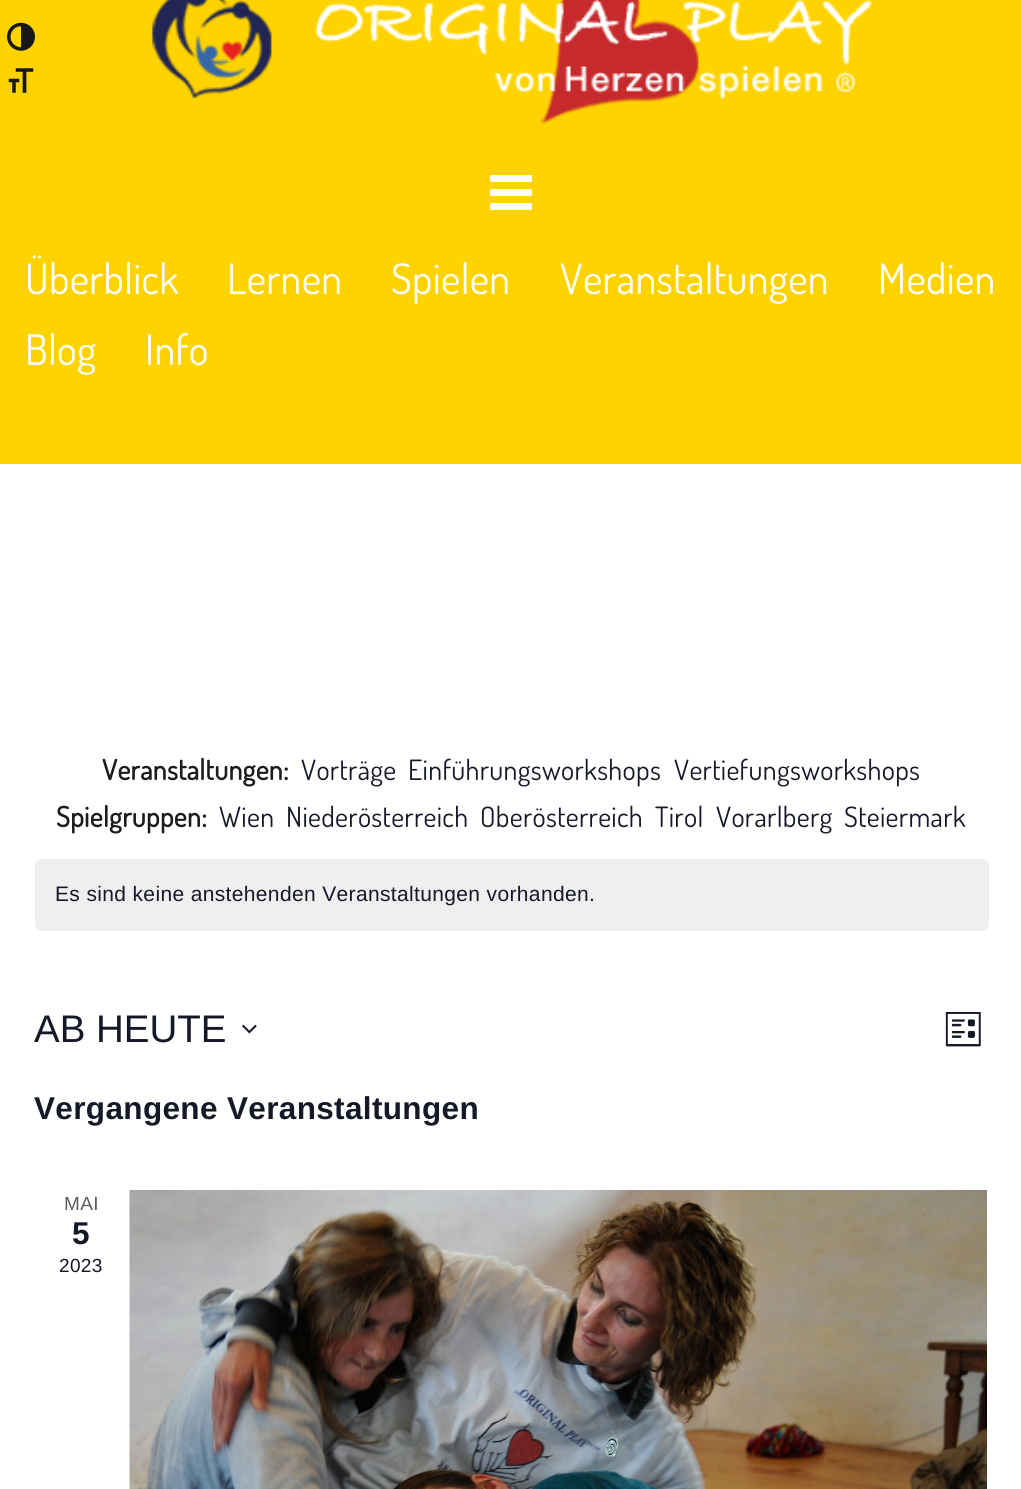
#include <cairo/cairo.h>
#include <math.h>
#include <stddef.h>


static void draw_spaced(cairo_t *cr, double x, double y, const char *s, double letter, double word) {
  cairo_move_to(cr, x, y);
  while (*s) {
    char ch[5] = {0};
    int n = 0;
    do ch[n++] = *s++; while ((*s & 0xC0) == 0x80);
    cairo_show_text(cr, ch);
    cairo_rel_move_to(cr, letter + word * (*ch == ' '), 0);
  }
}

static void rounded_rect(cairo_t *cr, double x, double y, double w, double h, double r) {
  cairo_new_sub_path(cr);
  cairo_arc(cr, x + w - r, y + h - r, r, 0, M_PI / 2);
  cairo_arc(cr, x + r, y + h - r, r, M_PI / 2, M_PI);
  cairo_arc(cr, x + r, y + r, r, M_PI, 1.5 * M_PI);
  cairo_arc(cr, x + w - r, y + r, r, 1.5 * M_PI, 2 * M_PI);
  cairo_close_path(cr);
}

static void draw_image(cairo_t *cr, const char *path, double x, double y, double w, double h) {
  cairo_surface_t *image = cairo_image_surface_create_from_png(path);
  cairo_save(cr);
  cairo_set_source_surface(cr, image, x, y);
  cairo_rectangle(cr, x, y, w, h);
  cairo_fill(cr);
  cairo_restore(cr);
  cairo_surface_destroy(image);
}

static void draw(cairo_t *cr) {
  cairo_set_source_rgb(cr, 1, 1, 1);
  cairo_paint(cr);
  cairo_set_source_rgb(cr, 1, 211 / 255.0, 0);
  cairo_rectangle(cr, 0, 0, 1021, 464);
  cairo_fill(cr);
  draw_image(cr, "images/1.png", 7, 22, 28, 29);
  draw_image(cr, "images/2.png", 8, 68, 26, 25);
  draw_image(cr, "images/3.png", 151, 0, 721, 125);
  draw_image(cr, "images/4.png", 490, 175, 42, 35);
  cairo_set_source_rgb(cr, 239 / 255.0, 239 / 255.0, 240 / 255.0);
  rounded_rect(cr, 35, 859, 954, 72, 7);
  cairo_fill(cr);
  draw_image(cr, "images/5.png", 242, 1024, 15, 10);
  draw_image(cr, "images/6.png", 945, 1012, 36, 35);
  draw_image(cr, "images/7.png", 129, 1190, 858, 299);
  cairo_select_font_face(cr, "Dosis", CAIRO_FONT_SLANT_NORMAL, CAIRO_FONT_WEIGHT_NORMAL);
  cairo_set_font_size(cr, 42);
  cairo_set_source_rgb(cr, 1, 1, 1);
  draw_spaced(cr, 25, 294, "Überblick", 0.35, 0);
  draw_spaced(cr, 227, 294, "Lernen", 0.35, 0);
  draw_spaced(cr, 391, 294, "Spielen", 0.35, 0);
  draw_spaced(cr, 560, 294, "Veranstaltungen", 0.35, 0);
  draw_spaced(cr, 878, 294, "Medien", 0.35, 0);
  draw_spaced(cr, 25, 365, "Blog", 0.35, 0);
  draw_spaced(cr, 145, 365, "Info", 0.35, 0);
  cairo_select_font_face(cr, "Dosis", CAIRO_FONT_SLANT_NORMAL, CAIRO_FONT_WEIGHT_BOLD);
  cairo_set_font_size(cr, 28);
  cairo_set_source_rgb(cr, 28 / 255.0, 28 / 255.0, 28 / 255.0);
  draw_spaced(cr, 102, 780, "Veranstaltungen:", 0.35, 0);
  cairo_select_font_face(cr, "Dosis", CAIRO_FONT_SLANT_NORMAL, CAIRO_FONT_WEIGHT_NORMAL);
  cairo_set_source_rgb(cr, 20 / 255.0, 24 / 255.0, 39 / 255.0);
  draw_spaced(cr, 301, 780, "Vorträge", 0.35, 0);
  draw_spaced(cr, 408, 780, "Einführungsworkshops", 0.35, 0);
  draw_spaced(cr, 674, 780, "Vertiefungsworkshops", 0.35, 0);
  cairo_select_font_face(cr, "Dosis", CAIRO_FONT_SLANT_NORMAL, CAIRO_FONT_WEIGHT_BOLD);
  cairo_set_source_rgb(cr, 28 / 255.0, 28 / 255.0, 28 / 255.0);
  draw_spaced(cr, 56, 827, "Spielgruppen:", 0.35, 0);
  cairo_select_font_face(cr, "Dosis", CAIRO_FONT_SLANT_NORMAL, CAIRO_FONT_WEIGHT_NORMAL);
  cairo_set_source_rgb(cr, 20 / 255.0, 24 / 255.0, 39 / 255.0);
  draw_spaced(cr, 219, 827, "Wien", 0.35, 0);
  draw_spaced(cr, 286, 827, "Niederösterreich", 0.35, 0);
  draw_spaced(cr, 480, 827, "Oberösterreich", 0.35, 0);
  draw_spaced(cr, 655, 827, "Tirol", 0.35, 0);
  draw_spaced(cr, 716, 827, "Vorarlberg", 0.35, 0);
  draw_spaced(cr, 844, 827, "Steiermark", 0.35, 0);
  cairo_select_font_face(cr, "Liberation Sans", CAIRO_FONT_SLANT_NORMAL, CAIRO_FONT_WEIGHT_NORMAL);
  cairo_set_font_size(cr, 21);
  draw_spaced(cr, 55, 901, "Es sind keine anstehenden Veranstaltungen vorhanden.", 0.35, 0);
  cairo_set_font_size(cr, 38.5);
  cairo_move_to(cr, 34, 1042);
  cairo_show_text(cr, "AB HEUTE");
  cairo_select_font_face(cr, "Liberation Sans", CAIRO_FONT_SLANT_NORMAL, CAIRO_FONT_WEIGHT_BOLD);
  cairo_set_font_size(cr, 31.5);
  draw_spaced(cr, 34, 1119, "Vergangene Veranstaltungen", 0.35, 0);
  cairo_select_font_face(cr, "Liberation Sans", CAIRO_FONT_SLANT_NORMAL, CAIRO_FONT_WEIGHT_NORMAL);
  cairo_set_font_size(cr, 19);
  cairo_set_source_rgb(cr, 93 / 255.0, 93 / 255.0, 93 / 255.0);
  draw_spaced(cr, 64, 1210, "MAI", 0.35, 0);
  cairo_select_font_face(cr, "Liberation Sans", CAIRO_FONT_SLANT_NORMAL, CAIRO_FONT_WEIGHT_BOLD);
  cairo_set_font_size(cr, 31.5);
  cairo_set_source_rgb(cr, 20 / 255.0, 24 / 255.0, 39 / 255.0);
  draw_spaced(cr, 72, 1244, "5", 0.35, 0);
  cairo_select_font_face(cr, "Liberation Sans", CAIRO_FONT_SLANT_NORMAL, CAIRO_FONT_WEIGHT_NORMAL);
  cairo_set_font_size(cr, 19);
  draw_spaced(cr, 59, 1272, "2023", 0.35, 0);
}

int main(void) {
  cairo_surface_t *surface = cairo_image_surface_create(CAIRO_FORMAT_RGB24, 1021, 1489);
  cairo_t *cr = cairo_create(surface);
  cairo_font_options_t *options = cairo_font_options_create();
  cairo_font_options_set_hint_metrics(options, CAIRO_HINT_METRICS_OFF);
  cairo_font_options_set_hint_style(options, CAIRO_HINT_STYLE_NONE);
  cairo_set_font_options(cr, options);
  cairo_set_miter_limit(cr, 4);
  draw(cr);
  cairo_surface_write_to_png(surface, "out.png");
  cairo_font_options_destroy(options);
  cairo_destroy(cr);
  cairo_surface_destroy(surface);
  return 0;
}
